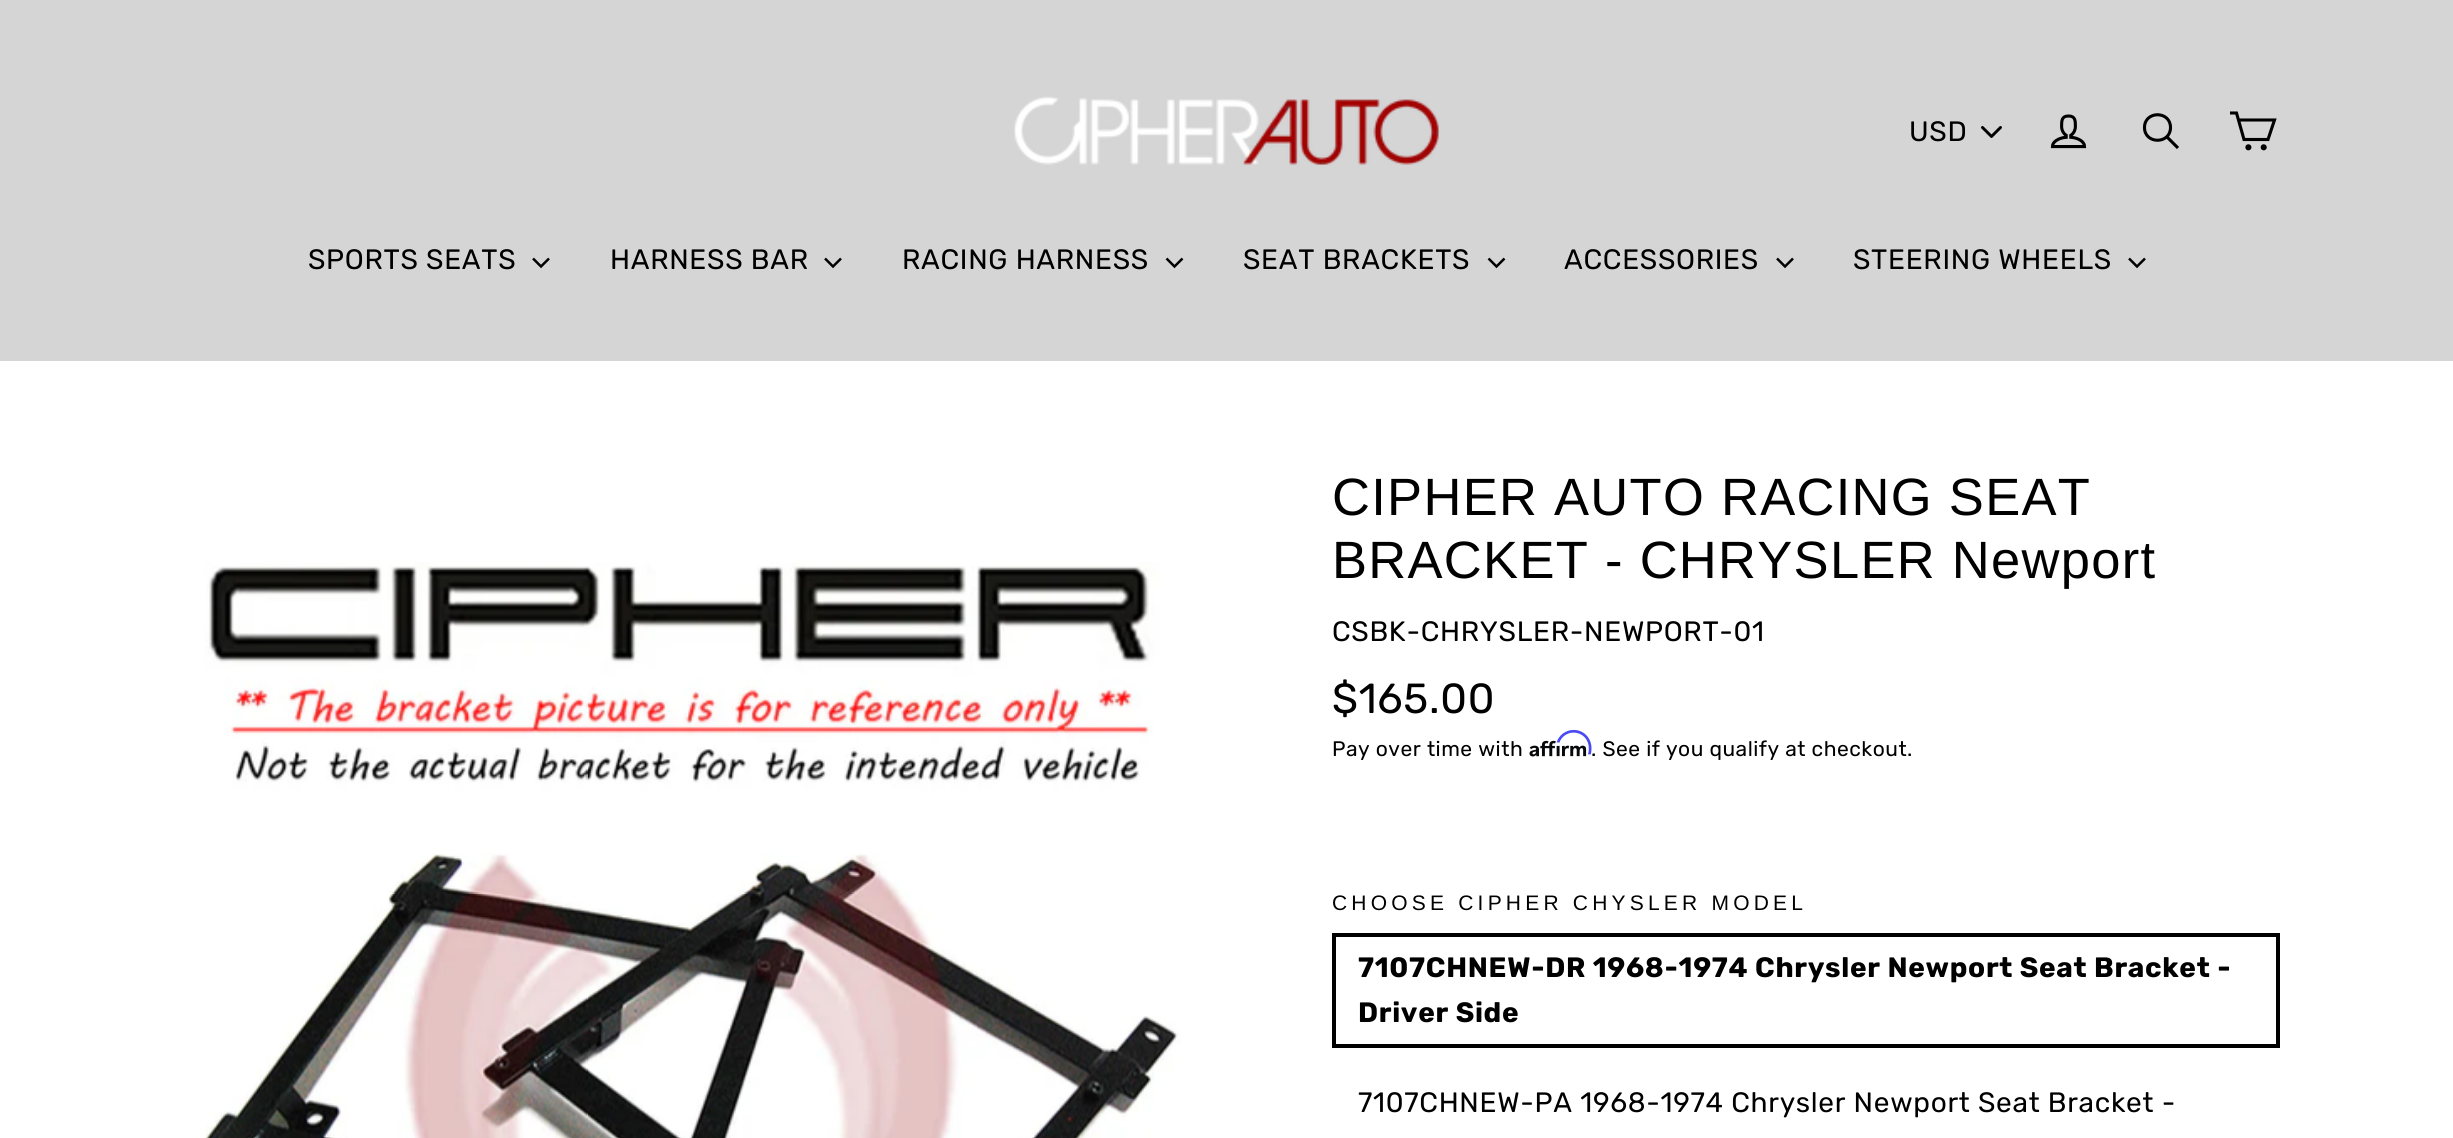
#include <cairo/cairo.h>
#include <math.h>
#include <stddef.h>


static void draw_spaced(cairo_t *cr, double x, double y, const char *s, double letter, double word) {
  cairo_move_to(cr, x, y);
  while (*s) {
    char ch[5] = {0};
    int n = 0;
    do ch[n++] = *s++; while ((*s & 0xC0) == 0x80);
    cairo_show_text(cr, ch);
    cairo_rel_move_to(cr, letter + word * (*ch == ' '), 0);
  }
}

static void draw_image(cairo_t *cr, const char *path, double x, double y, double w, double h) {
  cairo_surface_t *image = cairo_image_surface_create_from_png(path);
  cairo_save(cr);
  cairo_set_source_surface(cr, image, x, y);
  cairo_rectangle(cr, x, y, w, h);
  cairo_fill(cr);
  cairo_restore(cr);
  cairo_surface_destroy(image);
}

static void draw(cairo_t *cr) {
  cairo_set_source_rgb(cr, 1, 1, 1);
  cairo_paint(cr);
  cairo_set_source_rgb(cr, 213 / 255.0, 213 / 255.0, 213 / 255.0);
  cairo_rectangle(cr, 0, 0, 2453, 361);
  cairo_fill(cr);
  draw_image(cr, "images/1.png", 1014, 96, 426, 70);
  draw_image(cr, "images/2.png", 1981, 126, 21, 12);
  draw_image(cr, "images/3.png", 2050, 114, 37, 35);
  cairo_new_path(cr);
  cairo_move_to(cr, 2170.5, 127.5);
  cairo_curve_to(cr, 2170.5, 144.5, 2144.5, 144.5, 2144.5, 127.5);
  cairo_curve_to(cr, 2144.5, 110.5, 2170.5, 110.5, 2170.5, 127.5);
  cairo_close_path(cr);
  cairo_move_to(cr, 2178, 148);
  cairo_line_to(cr, 2167, 137);
  cairo_set_source_rgb(cr, 0, 0, 0);
  cairo_set_line_width(cr, 3.1);
  cairo_stroke(cr);
  cairo_new_path(cr);
  cairo_move_to(cr, 2238.5, 120);
  cairo_line_to(cr, 2274.5, 120);
  cairo_line_to(cr, 2268, 139.5);
  cairo_line_to(cr, 2244, 139.5);
  cairo_line_to(cr, 2236.5, 113);
  cairo_line_to(cr, 2230, 113);
  cairo_stroke(cr);
  cairo_arc(cr, 2248.4, 147.3, 1.5, 0, 2 * M_PI);
  cairo_stroke(cr);
  cairo_arc(cr, 2263.7, 147.3, 1.5, 0, 2 * M_PI);
  cairo_stroke(cr);
  cairo_new_path(cr);
  cairo_move_to(cr, 533, 258.5);
  cairo_line_to(cr, 541, 266.5);
  cairo_line_to(cr, 549, 258.5);
  cairo_set_line_width(cr, 2.5);
  cairo_stroke(cr);
  cairo_new_path(cr);
  cairo_move_to(cr, 825, 258.5);
  cairo_line_to(cr, 833, 266.5);
  cairo_line_to(cr, 841, 258.5);
  cairo_stroke(cr);
  cairo_new_path(cr);
  cairo_move_to(cr, 1166.5, 258.5);
  cairo_line_to(cr, 1174.5, 266.5);
  cairo_line_to(cr, 1182.5, 258.5);
  cairo_stroke(cr);
  cairo_new_path(cr);
  cairo_move_to(cr, 1488.5, 258.5);
  cairo_line_to(cr, 1496.5, 266.5);
  cairo_line_to(cr, 1504.5, 258.5);
  cairo_stroke(cr);
  cairo_new_path(cr);
  cairo_move_to(cr, 1777, 258.5);
  cairo_line_to(cr, 1785, 266.5);
  cairo_line_to(cr, 1793, 258.5);
  cairo_stroke(cr);
  cairo_new_path(cr);
  cairo_move_to(cr, 2129, 258.5);
  cairo_line_to(cr, 2137, 266.5);
  cairo_line_to(cr, 2145, 258.5);
  cairo_stroke(cr);
  draw_image(cr, "images/4.png", 204, 562, 977, 576);
  draw_image(cr, "images/6.png", 1529, 740, 58, 17);
  draw_image(cr, "images/5.png", 1556, 729, 36, 26);
  cairo_rectangle(cr, 1334, 935, 944, 111);
  cairo_set_line_width(cr, 4);
  cairo_stroke(cr);
  cairo_select_font_face(cr, "Rubik", CAIRO_FONT_SLANT_NORMAL, CAIRO_FONT_WEIGHT_NORMAL);
  cairo_set_font_size(cr, 28);
  draw_spaced(cr, 1909, 141, "USD", 0.7, 0);
  draw_spaced(cr, 308, 269, "SPORTS SEATS", 0.7, 0);
  draw_spaced(cr, 610, 269, "HARNESS BAR", 0.7, 0);
  draw_spaced(cr, 902, 269, "RACING HARNESS", 0.7, 0);
  draw_spaced(cr, 1243, 269, "SEAT BRACKETS", 0.7, 0);
  draw_spaced(cr, 1564, 269, "ACCESSORIES", 0.7, 0);
  draw_spaced(cr, 1853, 269, "STEERING WHEELS", 0.7, 0);
  cairo_select_font_face(cr, "Liberation Sans", CAIRO_FONT_SLANT_NORMAL, CAIRO_FONT_WEIGHT_NORMAL);
  cairo_set_font_size(cr, 52.5);
  draw_spaced(cr, 1332, 515, "CIPHER AUTO RACING SEAT", 1.3, 0);
  draw_spaced(cr, 1332, 578, "BRACKET - CHRYSLER Newport", 1.3, 0);
  cairo_select_font_face(cr, "Rubik", CAIRO_FONT_SLANT_NORMAL, CAIRO_FONT_WEIGHT_NORMAL);
  cairo_set_font_size(cr, 28);
  draw_spaced(cr, 1332, 641, "CSBK-CHRYSLER-NEWPORT-01", 0.7, 0);
  cairo_set_font_size(cr, 42);
  draw_spaced(cr, 1332, 713, "$165.00", 0.7, 0);
  cairo_set_font_size(cr, 21);
  draw_spaced(cr, 1332, 756, "Pay over time with", 0.5, 0);
  draw_spaced(cr, 1591, 756, ". See if you qualify at checkout.", 0.5, 0);
  cairo_select_font_face(cr, "Liberation Sans", CAIRO_FONT_SLANT_NORMAL, CAIRO_FONT_WEIGHT_NORMAL);
  draw_spaced(cr, 1332, 910, "CHOOSE CIPHER CHYSLER MODEL", 4.2, 0);
  cairo_select_font_face(cr, "Rubik", CAIRO_FONT_SLANT_NORMAL, CAIRO_FONT_WEIGHT_BOLD);
  cairo_set_font_size(cr, 28);
  draw_spaced(cr, 1358, 977, "7107CHNEW-DR 1968-1974 Chrysler Newport Seat Bracket -", 0.7, 0);
  draw_spaced(cr, 1358, 1022, "Driver Side", 0.7, 0);
  cairo_select_font_face(cr, "Rubik", CAIRO_FONT_SLANT_NORMAL, CAIRO_FONT_WEIGHT_NORMAL);
  draw_spaced(cr, 1358, 1112, "7107CHNEW-PA 1968-1974 Chrysler Newport Seat Bracket -", 0.7, 0);
}

int main(void) {
  cairo_surface_t *surface = cairo_image_surface_create(CAIRO_FORMAT_RGB24, 2453, 1138);
  cairo_t *cr = cairo_create(surface);
  cairo_font_options_t *options = cairo_font_options_create();
  cairo_font_options_set_hint_metrics(options, CAIRO_HINT_METRICS_OFF);
  cairo_font_options_set_hint_style(options, CAIRO_HINT_STYLE_NONE);
  cairo_set_font_options(cr, options);
  cairo_set_miter_limit(cr, 4);
  draw(cr);
  cairo_surface_write_to_png(surface, "out.png");
  cairo_font_options_destroy(options);
  cairo_destroy(cr);
  cairo_surface_destroy(surface);
  return 0;
}
